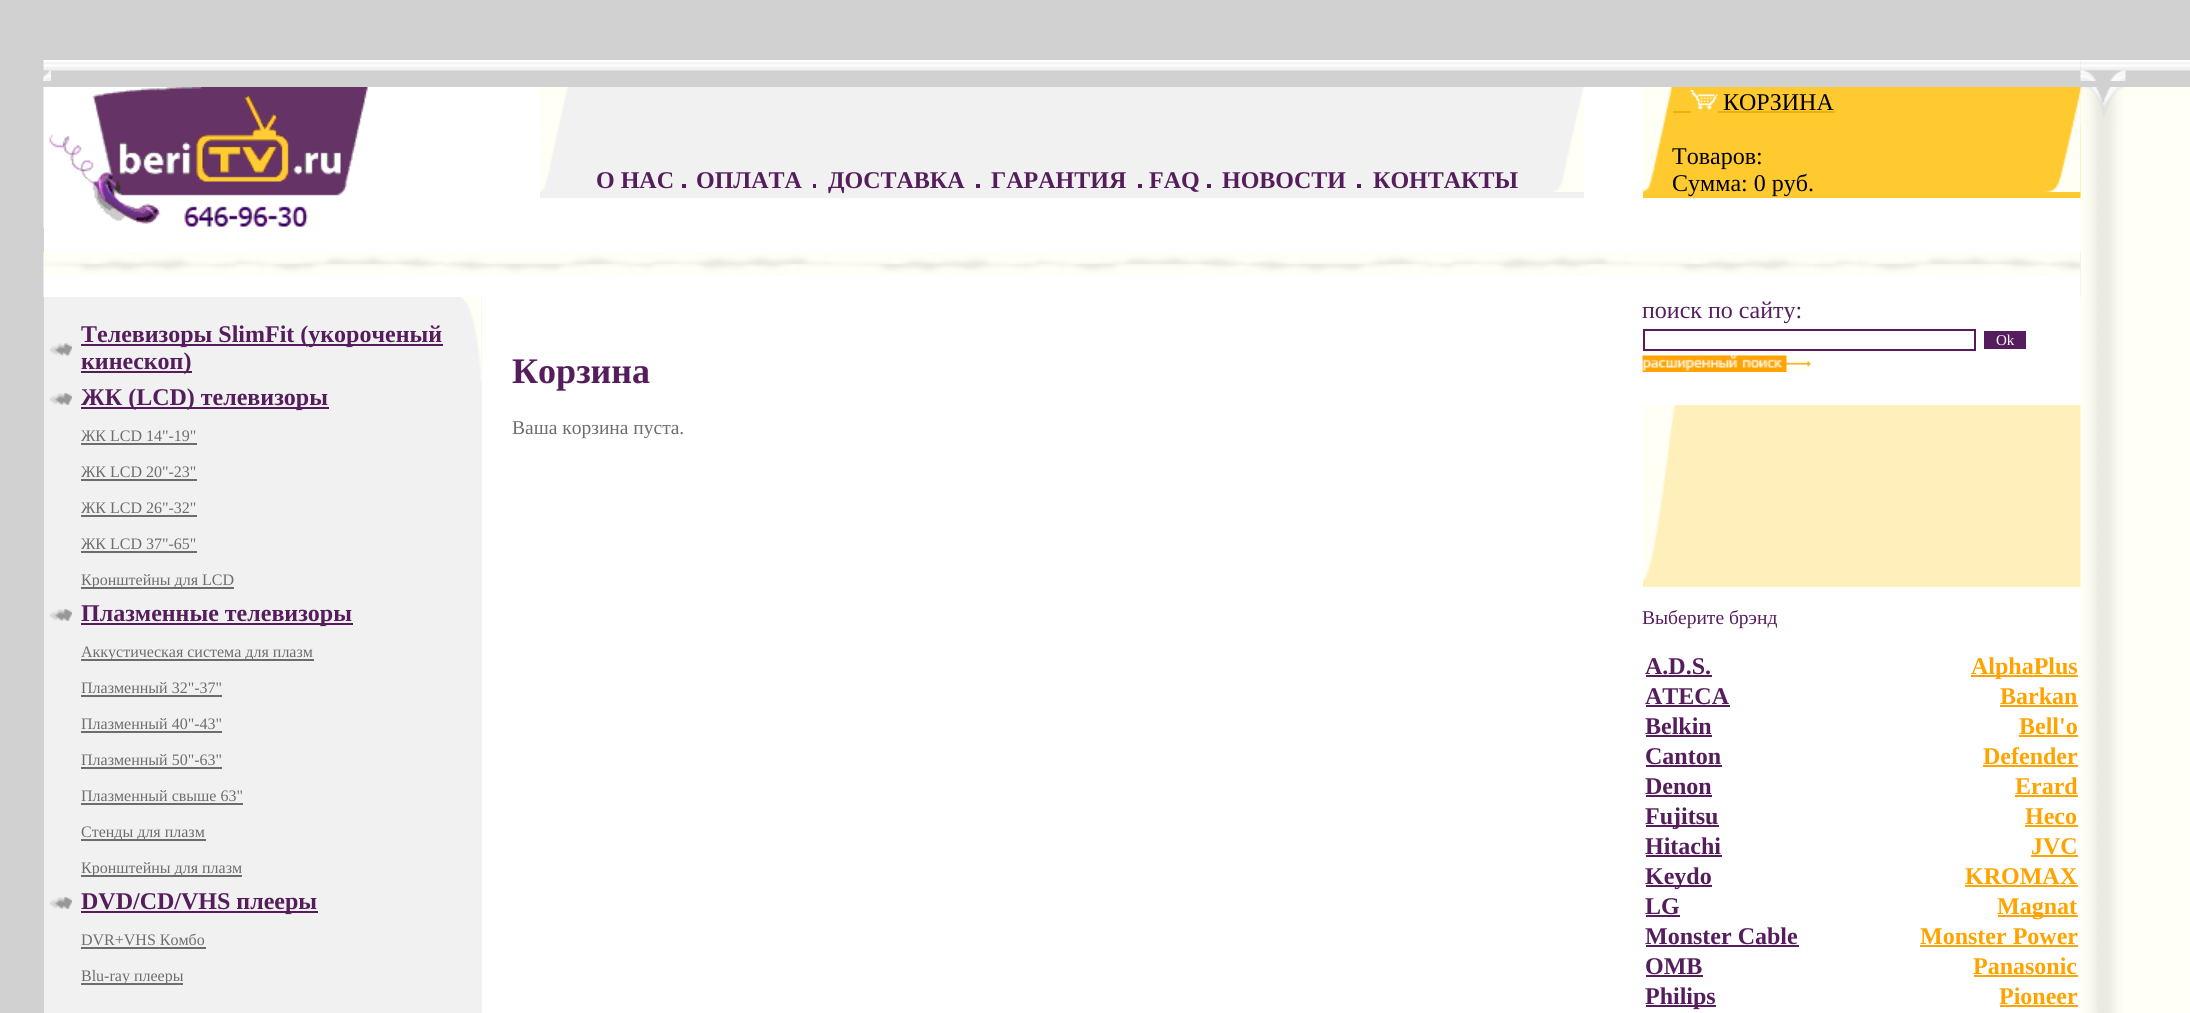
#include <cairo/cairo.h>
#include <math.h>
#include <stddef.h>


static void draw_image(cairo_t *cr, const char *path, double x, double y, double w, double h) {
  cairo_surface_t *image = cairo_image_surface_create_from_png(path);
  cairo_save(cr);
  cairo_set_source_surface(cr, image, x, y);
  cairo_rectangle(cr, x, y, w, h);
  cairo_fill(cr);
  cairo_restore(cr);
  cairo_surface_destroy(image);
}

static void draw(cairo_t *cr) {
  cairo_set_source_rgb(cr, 209 / 255.0, 209 / 255.0, 209 / 255.0);
  cairo_paint(cr);
  draw_image(cr, "images/1.png", 43, 60, 2038, 11);
  draw_image(cr, "images/2.png", 43, 70, 8, 11);
  draw_image(cr, "images/3.png", 2080, 60, 110, 11);
  draw_image(cr, "images/4.png", 2080, 70, 46, 11);
  cairo_set_source_rgb(cr, 1, 1, 1);
  cairo_rectangle(cr, 44, 87, 1599, 165);
  cairo_fill(cr);
  draw_image(cr, "images/5.png", 43, 87, 325, 141);
  cairo_rectangle(cr, 1643, 198, 438, 54);
  cairo_fill(cr);
  cairo_set_source_rgb(cr, 1, 202 / 255.0, 48 / 255.0);
  cairo_rectangle(cr, 1643, 87, 438, 111);
  cairo_fill(cr);
  draw_image(cr, "images/6.png", 1642, 87, 31, 105);
  draw_image(cr, "images/7.png", 1690, 90, 28, 20);
  cairo_set_source_rgb(cr, 240 / 255.0, 176 / 255.0, 12 / 255.0);
  cairo_rectangle(cr, 1673, 111, 18, 2);
  cairo_fill(cr);
  cairo_rectangle(cr, 1718, 111, 117, 2);
  cairo_fill(cr);
  draw_image(cr, "images/9.png", 2080, 87, 110, 165);
  draw_image(cr, "images/8.png", 2044, 87, 37, 105);
  draw_image(cr, "images/10.png", 2080, 87, 44, 38);
  cairo_set_source_rgb(cr, 241 / 255.0, 241 / 255.0, 241 / 255.0);
  cairo_rectangle(cr, 540, 87, 1044, 111);
  cairo_fill(cr);
  draw_image(cr, "images/11.png", 540, 87, 28, 105);
  cairo_set_source_rgb(cr, 85 / 255.0, 29 / 255.0, 92 / 255.0);
  cairo_rectangle(cr, 682, 184, 4, 4);
  cairo_fill(cr);
  cairo_rectangle(cr, 813, 184, 3, 4);
  cairo_fill(cr);
  cairo_rectangle(cr, 976, 184, 4, 4);
  cairo_fill(cr);
  cairo_rectangle(cr, 1138, 184, 4, 4);
  cairo_fill(cr);
  cairo_rectangle(cr, 1207, 184, 4, 4);
  cairo_fill(cr);
  cairo_rectangle(cr, 1357, 184, 4, 4);
  cairo_fill(cr);
  draw_image(cr, "images/12.png", 1553, 87, 31, 105);
  draw_image(cr, "images/13.png", 43, 252, 2038, 45);
  draw_image(cr, "images/14.png", 2080, 252, 110, 45);
  cairo_set_source_rgb(cr, 241 / 255.0, 241 / 255.0, 241 / 255.0);
  cairo_rectangle(cr, 44, 297, 438, 716);
  cairo_fill(cr);
  draw_image(cr, "images/15.png", 461, 297, 21, 85);
  draw_image(cr, "images/16.png", 49, 343, 23, 13);
  cairo_set_source_rgb(cr, 85 / 255.0, 29 / 255.0, 92 / 255.0);
  cairo_rectangle(cr, 81, 344, 362, 2);
  cairo_fill(cr);
  cairo_rectangle(cr, 81, 371, 111, 2);
  cairo_fill(cr);
  draw_image(cr, "images/17.png", 49, 393, 23, 12);
  cairo_rectangle(cr, 81, 407, 248, 2);
  cairo_fill(cr);
  cairo_set_source_rgb(cr, 109 / 255.0, 109 / 255.0, 109 / 255.0);
  cairo_rectangle(cr, 81, 443, 116, 2);
  cairo_fill(cr);
  cairo_rectangle(cr, 81, 479, 116, 2);
  cairo_fill(cr);
  cairo_rectangle(cr, 81, 515, 116, 2);
  cairo_fill(cr);
  cairo_rectangle(cr, 81, 551, 116, 2);
  cairo_fill(cr);
  cairo_rectangle(cr, 81, 587, 153, 2);
  cairo_fill(cr);
  draw_image(cr, "images/17.png", 49, 609, 23, 12);
  cairo_set_source_rgb(cr, 85 / 255.0, 29 / 255.0, 92 / 255.0);
  cairo_rectangle(cr, 81, 623, 272, 2);
  cairo_fill(cr);
  cairo_set_source_rgb(cr, 109 / 255.0, 109 / 255.0, 109 / 255.0);
  cairo_rectangle(cr, 81, 659, 233, 2);
  cairo_fill(cr);
  cairo_rectangle(cr, 81, 695, 141, 2);
  cairo_fill(cr);
  cairo_rectangle(cr, 81, 731, 141, 2);
  cairo_fill(cr);
  cairo_rectangle(cr, 81, 767, 141, 2);
  cairo_fill(cr);
  cairo_rectangle(cr, 81, 803, 162, 2);
  cairo_fill(cr);
  cairo_rectangle(cr, 81, 839, 125, 2);
  cairo_fill(cr);
  cairo_rectangle(cr, 81, 875, 161, 2);
  cairo_fill(cr);
  draw_image(cr, "images/17.png", 49, 897, 23, 12);
  cairo_set_source_rgb(cr, 85 / 255.0, 29 / 255.0, 92 / 255.0);
  cairo_rectangle(cr, 81, 911, 237, 2);
  cairo_fill(cr);
  cairo_set_source_rgb(cr, 109 / 255.0, 109 / 255.0, 109 / 255.0);
  cairo_rectangle(cr, 81, 947, 125, 2);
  cairo_fill(cr);
  cairo_rectangle(cr, 81, 983, 102, 2);
  cairo_fill(cr);
  cairo_set_source_rgb(cr, 1, 1, 1);
  cairo_rectangle(cr, 482, 297, 1599, 716);
  cairo_fill(cr);
  cairo_rectangle(cr, 1644, 330, 331, 20);
  cairo_set_source_rgb(cr, 85 / 255.0, 29 / 255.0, 92 / 255.0);
  cairo_stroke(cr);
  cairo_rectangle(cr, 1984, 331, 42, 18);
  cairo_fill(cr);
  draw_image(cr, "images/18.png", 1642, 355, 169, 17);
  cairo_set_source_rgb(cr, 1, 239 / 255.0, 186 / 255.0);
  cairo_rectangle(cr, 1643, 405, 438, 182);
  cairo_fill(cr);
  draw_image(cr, "images/19.png", 1642, 405, 34, 176);
  cairo_set_source_rgb(cr, 85 / 255.0, 29 / 255.0, 92 / 255.0);
  cairo_rectangle(cr, 1646, 675, 66, 2);
  cairo_fill(cr);
  cairo_set_source_rgb(cr, 1, 163 / 255.0, 0);
  cairo_rectangle(cr, 1971, 675, 107, 2);
  cairo_fill(cr);
  cairo_set_source_rgb(cr, 85 / 255.0, 29 / 255.0, 92 / 255.0);
  cairo_rectangle(cr, 1646, 705, 84, 2);
  cairo_fill(cr);
  cairo_set_source_rgb(cr, 1, 163 / 255.0, 0);
  cairo_rectangle(cr, 2000, 705, 78, 2);
  cairo_fill(cr);
  cairo_set_source_rgb(cr, 85 / 255.0, 29 / 255.0, 92 / 255.0);
  cairo_rectangle(cr, 1646, 735, 66, 2);
  cairo_fill(cr);
  cairo_set_source_rgb(cr, 1, 163 / 255.0, 0);
  cairo_rectangle(cr, 2019, 735, 59, 2);
  cairo_fill(cr);
  cairo_set_source_rgb(cr, 85 / 255.0, 29 / 255.0, 92 / 255.0);
  cairo_rectangle(cr, 1646, 765, 76, 2);
  cairo_fill(cr);
  cairo_set_source_rgb(cr, 1, 163 / 255.0, 0);
  cairo_rectangle(cr, 1983, 765, 95, 2);
  cairo_fill(cr);
  cairo_set_source_rgb(cr, 85 / 255.0, 29 / 255.0, 92 / 255.0);
  cairo_rectangle(cr, 1646, 795, 66, 2);
  cairo_fill(cr);
  cairo_set_source_rgb(cr, 1, 163 / 255.0, 0);
  cairo_rectangle(cr, 2015, 795, 63, 2);
  cairo_fill(cr);
  cairo_set_source_rgb(cr, 85 / 255.0, 29 / 255.0, 92 / 255.0);
  cairo_rectangle(cr, 1646, 825, 73, 2);
  cairo_fill(cr);
  cairo_set_source_rgb(cr, 1, 163 / 255.0, 0);
  cairo_rectangle(cr, 2025, 825, 53, 2);
  cairo_fill(cr);
  cairo_set_source_rgb(cr, 85 / 255.0, 29 / 255.0, 92 / 255.0);
  cairo_rectangle(cr, 1646, 855, 76, 2);
  cairo_fill(cr);
  cairo_set_source_rgb(cr, 1, 163 / 255.0, 0);
  cairo_rectangle(cr, 2031, 855, 47, 2);
  cairo_fill(cr);
  cairo_set_source_rgb(cr, 85 / 255.0, 29 / 255.0, 92 / 255.0);
  cairo_rectangle(cr, 1646, 885, 66, 2);
  cairo_fill(cr);
  cairo_set_source_rgb(cr, 1, 163 / 255.0, 0);
  cairo_rectangle(cr, 1965, 885, 113, 2);
  cairo_fill(cr);
  cairo_set_source_rgb(cr, 85 / 255.0, 29 / 255.0, 92 / 255.0);
  cairo_rectangle(cr, 1646, 915, 34, 2);
  cairo_fill(cr);
  cairo_set_source_rgb(cr, 1, 163 / 255.0, 0);
  cairo_rectangle(cr, 1998, 915, 80, 2);
  cairo_fill(cr);
  cairo_set_source_rgb(cr, 85 / 255.0, 29 / 255.0, 92 / 255.0);
  cairo_rectangle(cr, 1646, 945, 153, 2);
  cairo_fill(cr);
  cairo_set_source_rgb(cr, 1, 163 / 255.0, 0);
  cairo_rectangle(cr, 1920, 945, 158, 2);
  cairo_fill(cr);
  cairo_set_source_rgb(cr, 85 / 255.0, 29 / 255.0, 92 / 255.0);
  cairo_rectangle(cr, 1646, 975, 57, 2);
  cairo_fill(cr);
  cairo_set_source_rgb(cr, 1, 163 / 255.0, 0);
  cairo_rectangle(cr, 1974, 975, 104, 2);
  cairo_fill(cr);
  cairo_set_source_rgb(cr, 85 / 255.0, 29 / 255.0, 92 / 255.0);
  cairo_rectangle(cr, 1646, 1005, 70, 2);
  cairo_fill(cr);
  cairo_set_source_rgb(cr, 1, 163 / 255.0, 0);
  cairo_rectangle(cr, 2000, 1005, 78, 2);
  cairo_fill(cr);
  draw_image(cr, "images/20.png", 2080, 297, 110, 716);
  cairo_select_font_face(cr, "Liberation Serif", CAIRO_FONT_SLANT_NORMAL, CAIRO_FONT_WEIGHT_NORMAL);
  cairo_set_font_size(cr, 24);
  cairo_set_source_rgb(cr, 0, 0, 0);
  cairo_move_to(cr, 1723, 110);
  cairo_show_text(cr, "КОРЗИНА");
  cairo_move_to(cr, 1672, 164);
  cairo_show_text(cr, "Товаров:");
  cairo_move_to(cr, 1672, 191);
  cairo_show_text(cr, "Сумма: 0 руб.");
  cairo_select_font_face(cr, "Liberation Serif", CAIRO_FONT_SLANT_NORMAL, CAIRO_FONT_WEIGHT_BOLD);
  cairo_set_source_rgb(cr, 85 / 255.0, 29 / 255.0, 92 / 255.0);
  cairo_move_to(cr, 596, 188);
  cairo_show_text(cr, "О НАС");
  cairo_move_to(cr, 696, 188);
  cairo_show_text(cr, "ОПЛАТА");
  cairo_move_to(cr, 828, 188);
  cairo_show_text(cr, "ДОСТАВКА");
  cairo_move_to(cr, 991, 188);
  cairo_show_text(cr, "ГАРАНТИЯ");
  cairo_move_to(cr, 1149, 188);
  cairo_show_text(cr, "FAQ");
  cairo_move_to(cr, 1222, 188);
  cairo_show_text(cr, "НОВОСТИ");
  cairo_move_to(cr, 1373, 188);
  cairo_show_text(cr, "КОНТАКТЫ");
  cairo_move_to(cr, 81, 342);
  cairo_show_text(cr, "Телевизоры SlimFit (укороченый");
  cairo_move_to(cr, 81, 369);
  cairo_show_text(cr, "кинескоп)");
  cairo_move_to(cr, 81, 405);
  cairo_show_text(cr, "ЖК (LCD) телевизоры");
  cairo_select_font_face(cr, "Liberation Serif", CAIRO_FONT_SLANT_NORMAL, CAIRO_FONT_WEIGHT_NORMAL);
  cairo_set_font_size(cr, 16);
  cairo_set_source_rgb(cr, 109 / 255.0, 109 / 255.0, 109 / 255.0);
  cairo_move_to(cr, 81, 441);
  cairo_show_text(cr, "ЖК LCD 14\"-19\"");
  cairo_move_to(cr, 81, 477);
  cairo_show_text(cr, "ЖК LCD 20\"-23\"");
  cairo_move_to(cr, 81, 513);
  cairo_show_text(cr, "ЖК LCD 26\"-32\"");
  cairo_move_to(cr, 81, 549);
  cairo_show_text(cr, "ЖК LCD 37\"-65\"");
  cairo_move_to(cr, 81, 585);
  cairo_show_text(cr, "Кронштейны для LCD");
  cairo_select_font_face(cr, "Liberation Serif", CAIRO_FONT_SLANT_NORMAL, CAIRO_FONT_WEIGHT_BOLD);
  cairo_set_font_size(cr, 24);
  cairo_set_source_rgb(cr, 85 / 255.0, 29 / 255.0, 92 / 255.0);
  cairo_move_to(cr, 81, 621);
  cairo_show_text(cr, "Плазменные телевизоры");
  cairo_select_font_face(cr, "Liberation Serif", CAIRO_FONT_SLANT_NORMAL, CAIRO_FONT_WEIGHT_NORMAL);
  cairo_set_font_size(cr, 16);
  cairo_set_source_rgb(cr, 109 / 255.0, 109 / 255.0, 109 / 255.0);
  cairo_move_to(cr, 81, 657);
  cairo_show_text(cr, "Аккустическая система для плазм");
  cairo_move_to(cr, 81, 693);
  cairo_show_text(cr, "Плазменный 32\"-37\"");
  cairo_move_to(cr, 81, 729);
  cairo_show_text(cr, "Плазменный 40\"-43\"");
  cairo_move_to(cr, 81, 765);
  cairo_show_text(cr, "Плазменный 50\"-63\"");
  cairo_move_to(cr, 81, 801);
  cairo_show_text(cr, "Плазменный свыше 63\"");
  cairo_move_to(cr, 81, 837);
  cairo_show_text(cr, "Стенды для плазм");
  cairo_move_to(cr, 81, 873);
  cairo_show_text(cr, "Кронштейны для плазм");
  cairo_select_font_face(cr, "Liberation Serif", CAIRO_FONT_SLANT_NORMAL, CAIRO_FONT_WEIGHT_BOLD);
  cairo_set_font_size(cr, 24);
  cairo_set_source_rgb(cr, 85 / 255.0, 29 / 255.0, 92 / 255.0);
  cairo_move_to(cr, 81, 909);
  cairo_show_text(cr, "DVD/CD/VHS плееры");
  cairo_select_font_face(cr, "Liberation Serif", CAIRO_FONT_SLANT_NORMAL, CAIRO_FONT_WEIGHT_NORMAL);
  cairo_set_font_size(cr, 16);
  cairo_set_source_rgb(cr, 109 / 255.0, 109 / 255.0, 109 / 255.0);
  cairo_move_to(cr, 81, 945);
  cairo_show_text(cr, "DVR+VHS Комбо");
  cairo_move_to(cr, 81, 981);
  cairo_show_text(cr, "Blu-ray плееры");
  cairo_select_font_face(cr, "Liberation Serif", CAIRO_FONT_SLANT_NORMAL, CAIRO_FONT_WEIGHT_BOLD);
  cairo_set_font_size(cr, 36);
  cairo_set_source_rgb(cr, 85 / 255.0, 29 / 255.0, 92 / 255.0);
  cairo_move_to(cr, 512, 383);
  cairo_show_text(cr, "Корзина");
  cairo_select_font_face(cr, "Liberation Serif", CAIRO_FONT_SLANT_NORMAL, CAIRO_FONT_WEIGHT_NORMAL);
  cairo_set_font_size(cr, 19.5);
  cairo_set_source_rgb(cr, 109 / 255.0, 109 / 255.0, 109 / 255.0);
  cairo_move_to(cr, 512, 434);
  cairo_show_text(cr, "Ваша корзина пуста.");
  cairo_set_font_size(cr, 24);
  cairo_set_source_rgb(cr, 85 / 255.0, 29 / 255.0, 92 / 255.0);
  cairo_move_to(cr, 1642, 318);
  cairo_show_text(cr, "поиск по сайту:");
  cairo_set_font_size(cr, 15);
  cairo_set_source_rgb(cr, 1, 1, 1);
  cairo_move_to(cr, 1996, 345);
  cairo_show_text(cr, "Ok");
  cairo_set_font_size(cr, 19.5);
  cairo_set_source_rgb(cr, 85 / 255.0, 29 / 255.0, 92 / 255.0);
  cairo_move_to(cr, 1642, 624);
  cairo_show_text(cr, "Выберите брэнд");
  cairo_select_font_face(cr, "Liberation Serif", CAIRO_FONT_SLANT_NORMAL, CAIRO_FONT_WEIGHT_BOLD);
  cairo_set_font_size(cr, 24);
  cairo_move_to(cr, 1645, 674);
  cairo_show_text(cr, "A.D.S.");
  cairo_set_source_rgb(cr, 1, 163 / 255.0, 0);
  cairo_move_to(cr, 1971, 674);
  cairo_show_text(cr, "AlphaPlus");
  cairo_set_source_rgb(cr, 85 / 255.0, 29 / 255.0, 92 / 255.0);
  cairo_move_to(cr, 1645, 704);
  cairo_show_text(cr, "ATECA");
  cairo_set_source_rgb(cr, 1, 163 / 255.0, 0);
  cairo_move_to(cr, 2000, 704);
  cairo_show_text(cr, "Barkan");
  cairo_set_source_rgb(cr, 85 / 255.0, 29 / 255.0, 92 / 255.0);
  cairo_move_to(cr, 1645, 734);
  cairo_show_text(cr, "Belkin");
  cairo_set_source_rgb(cr, 1, 163 / 255.0, 0);
  cairo_move_to(cr, 2019, 734);
  cairo_show_text(cr, "Bell'o");
  cairo_set_source_rgb(cr, 85 / 255.0, 29 / 255.0, 92 / 255.0);
  cairo_move_to(cr, 1645, 764);
  cairo_show_text(cr, "Canton");
  cairo_set_source_rgb(cr, 1, 163 / 255.0, 0);
  cairo_move_to(cr, 1983, 764);
  cairo_show_text(cr, "Defender");
  cairo_set_source_rgb(cr, 85 / 255.0, 29 / 255.0, 92 / 255.0);
  cairo_move_to(cr, 1645, 794);
  cairo_show_text(cr, "Denon");
  cairo_set_source_rgb(cr, 1, 163 / 255.0, 0);
  cairo_move_to(cr, 2015, 794);
  cairo_show_text(cr, "Erard");
  cairo_set_source_rgb(cr, 85 / 255.0, 29 / 255.0, 92 / 255.0);
  cairo_move_to(cr, 1645, 824);
  cairo_show_text(cr, "Fujitsu");
  cairo_set_source_rgb(cr, 1, 163 / 255.0, 0);
  cairo_move_to(cr, 2025, 824);
  cairo_show_text(cr, "Heco");
  cairo_set_source_rgb(cr, 85 / 255.0, 29 / 255.0, 92 / 255.0);
  cairo_move_to(cr, 1645, 854);
  cairo_show_text(cr, "Hitachi");
  cairo_set_source_rgb(cr, 1, 163 / 255.0, 0);
  cairo_move_to(cr, 2031, 854);
  cairo_show_text(cr, "JVC");
  cairo_set_source_rgb(cr, 85 / 255.0, 29 / 255.0, 92 / 255.0);
  cairo_move_to(cr, 1645, 884);
  cairo_show_text(cr, "Keydo");
  cairo_set_source_rgb(cr, 1, 163 / 255.0, 0);
  cairo_move_to(cr, 1965, 884);
  cairo_show_text(cr, "KROMAX");
  cairo_set_source_rgb(cr, 85 / 255.0, 29 / 255.0, 92 / 255.0);
  cairo_move_to(cr, 1645, 914);
  cairo_show_text(cr, "LG");
  cairo_set_source_rgb(cr, 1, 163 / 255.0, 0);
  cairo_move_to(cr, 1997, 914);
  cairo_show_text(cr, "Magnat");
  cairo_set_source_rgb(cr, 85 / 255.0, 29 / 255.0, 92 / 255.0);
  cairo_move_to(cr, 1645, 944);
  cairo_show_text(cr, "Monster Cable");
  cairo_set_source_rgb(cr, 1, 163 / 255.0, 0);
  cairo_move_to(cr, 1920, 944);
  cairo_show_text(cr, "Monster Power");
  cairo_set_source_rgb(cr, 85 / 255.0, 29 / 255.0, 92 / 255.0);
  cairo_move_to(cr, 1645, 974);
  cairo_show_text(cr, "OMB");
  cairo_set_source_rgb(cr, 1, 163 / 255.0, 0);
  cairo_move_to(cr, 1973, 974);
  cairo_show_text(cr, "Panasonic");
  cairo_set_source_rgb(cr, 85 / 255.0, 29 / 255.0, 92 / 255.0);
  cairo_move_to(cr, 1645, 1004);
  cairo_show_text(cr, "Philips");
  cairo_set_source_rgb(cr, 1, 163 / 255.0, 0);
  cairo_move_to(cr, 1999, 1004);
  cairo_show_text(cr, "Pioneer");
}

int main(void) {
  cairo_surface_t *surface = cairo_image_surface_create(CAIRO_FORMAT_RGB24, 2190, 1013);
  cairo_t *cr = cairo_create(surface);
  cairo_font_options_t *options = cairo_font_options_create();
  cairo_font_options_set_hint_metrics(options, CAIRO_HINT_METRICS_OFF);
  cairo_font_options_set_hint_style(options, CAIRO_HINT_STYLE_NONE);
  cairo_set_font_options(cr, options);
  cairo_set_miter_limit(cr, 4);
  draw(cr);
  cairo_surface_write_to_png(surface, "out.png");
  cairo_font_options_destroy(options);
  cairo_destroy(cr);
  cairo_surface_destroy(surface);
  return 0;
}
